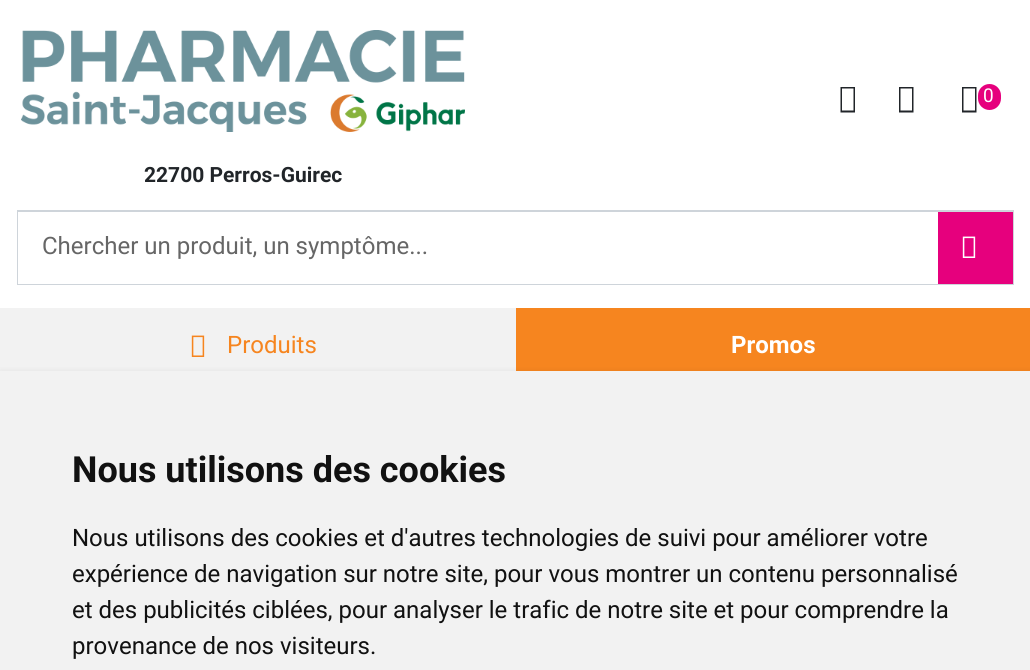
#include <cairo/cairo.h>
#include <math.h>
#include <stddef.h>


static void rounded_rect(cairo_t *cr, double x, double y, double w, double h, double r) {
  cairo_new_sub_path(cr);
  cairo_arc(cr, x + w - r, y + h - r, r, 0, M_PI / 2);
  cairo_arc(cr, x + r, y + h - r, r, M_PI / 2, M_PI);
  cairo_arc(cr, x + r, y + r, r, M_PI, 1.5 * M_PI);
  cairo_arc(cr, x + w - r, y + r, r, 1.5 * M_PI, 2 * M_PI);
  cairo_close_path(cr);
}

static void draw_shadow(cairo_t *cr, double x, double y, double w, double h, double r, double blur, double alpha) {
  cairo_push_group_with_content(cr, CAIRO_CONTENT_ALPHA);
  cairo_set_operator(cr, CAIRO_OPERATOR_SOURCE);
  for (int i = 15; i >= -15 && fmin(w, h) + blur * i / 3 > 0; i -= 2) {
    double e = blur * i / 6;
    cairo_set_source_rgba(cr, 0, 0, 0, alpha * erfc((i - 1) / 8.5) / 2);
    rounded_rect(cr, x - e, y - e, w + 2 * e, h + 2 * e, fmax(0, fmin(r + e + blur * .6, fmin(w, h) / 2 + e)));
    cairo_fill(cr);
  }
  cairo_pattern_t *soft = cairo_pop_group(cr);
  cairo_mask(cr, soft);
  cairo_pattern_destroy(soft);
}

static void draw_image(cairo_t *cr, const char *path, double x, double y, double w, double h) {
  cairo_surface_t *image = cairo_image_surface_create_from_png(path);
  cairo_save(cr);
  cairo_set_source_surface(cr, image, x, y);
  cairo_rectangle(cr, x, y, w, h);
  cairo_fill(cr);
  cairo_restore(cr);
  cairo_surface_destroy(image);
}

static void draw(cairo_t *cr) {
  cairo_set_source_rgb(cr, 1, 1, 1);
  cairo_paint(cr);
  cairo_set_source_rgb(cr, 33 / 255.0, 37 / 255.0, 41 / 255.0);
  cairo_new_path(cr);
  cairo_move_to(cr, 840.5, 112.5);
  cairo_line_to(cr, 840.5, 87);
  cairo_line_to(cr, 855, 87);
  cairo_line_to(cr, 855, 112.5);
  cairo_close_path(cr);
  cairo_move_to(cr, 842, 110.5);
  cairo_line_to(cr, 853.5, 110.5);
  cairo_line_to(cr, 853.5, 88.5);
  cairo_line_to(cr, 842, 88.5);
  cairo_close_path(cr);
  cairo_fill(cr);
  cairo_new_path(cr);
  cairo_move_to(cr, 899, 112.5);
  cairo_line_to(cr, 899, 87);
  cairo_line_to(cr, 913.5, 87);
  cairo_line_to(cr, 913.5, 112.5);
  cairo_close_path(cr);
  cairo_move_to(cr, 900.5, 110.5);
  cairo_line_to(cr, 912, 110.5);
  cairo_line_to(cr, 912, 88.5);
  cairo_line_to(cr, 900.5, 88.5);
  cairo_close_path(cr);
  cairo_fill(cr);
  cairo_new_path(cr);
  cairo_move_to(cr, 962, 112.5);
  cairo_line_to(cr, 962, 87);
  cairo_line_to(cr, 976.5, 87);
  cairo_line_to(cr, 976.5, 112.5);
  cairo_close_path(cr);
  cairo_move_to(cr, 963.5, 110.5);
  cairo_line_to(cr, 975, 110.5);
  cairo_line_to(cr, 975, 88.5);
  cairo_line_to(cr, 963.5, 88.5);
  cairo_close_path(cr);
  cairo_fill(cr);
  cairo_set_source_rgb(cr, 230 / 255.0, 0, 125 / 255.0);
  rounded_rect(cr, 978, 84, 23, 26, 11.5);
  cairo_fill(cr);
  draw_image(cr, "images/1.png", 21, 30, 444, 102);
  cairo_rectangle(cr, 18, 211, 995, 73);
  cairo_set_source_rgb(cr, 206 / 255.0, 212 / 255.0, 218 / 255.0);
  cairo_stroke(cr);
  cairo_set_source_rgb(cr, 1, 1, 1);
  cairo_rectangle(cr, 18, 212, 920, 72);
  cairo_fill(cr);
  cairo_set_source_rgb(cr, 230 / 255.0, 0, 125 / 255.0);
  cairo_rectangle(cr, 938, 212, 75, 72);
  cairo_fill(cr);
  draw_image(cr, "images/2.png", 962, 236, 14, 22);
  cairo_set_source_rgb(cr, 242 / 255.0, 242 / 255.0, 242 / 255.0);
  cairo_rectangle(cr, 0, 308, 516, 63);
  cairo_fill(cr);
  draw_image(cr, "images/3.png", 191, 335, 14, 22);
  cairo_set_source_rgb(cr, 246 / 255.0, 133 / 255.0, 31 / 255.0);
  cairo_rectangle(cr, 516, 308, 514, 63);
  cairo_fill(cr);
  cairo_set_source_rgb(cr, 0, 0, 0);
  draw_shadow(cr, 0, 371, 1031, 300, 0, 3, 0.07);
  cairo_set_source_rgb(cr, 242 / 255.0, 242 / 255.0, 242 / 255.0);
  cairo_rectangle(cr, 0, 371, 1030, 299);
  cairo_fill(cr);
  cairo_select_font_face(cr, "Roboto", CAIRO_FONT_SLANT_NORMAL, CAIRO_FONT_WEIGHT_NORMAL);
  cairo_set_font_size(cr, 19);
  cairo_set_source_rgb(cr, 1, 1, 1);
  cairo_move_to(cr, 983, 102);
  cairo_show_text(cr, "0");
  cairo_select_font_face(cr, "Roboto", CAIRO_FONT_SLANT_NORMAL, CAIRO_FONT_WEIGHT_BOLD);
  cairo_set_font_size(cr, 21);
  cairo_set_source_rgb(cr, 33 / 255.0, 37 / 255.0, 41 / 255.0);
  cairo_move_to(cr, 144, 182);
  cairo_show_text(cr, "22700 Perros-Guirec");
  cairo_select_font_face(cr, "Roboto", CAIRO_FONT_SLANT_NORMAL, CAIRO_FONT_WEIGHT_NORMAL);
  cairo_set_font_size(cr, 24);
  cairo_set_source_rgb(cr, 102 / 255.0, 102 / 255.0, 102 / 255.0);
  cairo_move_to(cr, 42, 254);
  cairo_show_text(cr, "Chercher un produit, un symptôme...");
  cairo_set_source_rgb(cr, 246 / 255.0, 133 / 255.0, 31 / 255.0);
  cairo_move_to(cr, 227, 353);
  cairo_show_text(cr, "Produits");
  cairo_select_font_face(cr, "Roboto", CAIRO_FONT_SLANT_NORMAL, CAIRO_FONT_WEIGHT_BOLD);
  cairo_set_source_rgb(cr, 1, 1, 1);
  cairo_move_to(cr, 731, 353);
  cairo_show_text(cr, "Promos");
  cairo_set_font_size(cr, 36);
  cairo_set_source_rgb(cr, 17 / 255.0, 17 / 255.0, 17 / 255.0);
  cairo_move_to(cr, 72, 482);
  cairo_show_text(cr, "Nous utilisons des cookies");
  cairo_select_font_face(cr, "Roboto", CAIRO_FONT_SLANT_NORMAL, CAIRO_FONT_WEIGHT_NORMAL);
  cairo_set_font_size(cr, 24);
  cairo_move_to(cr, 72, 546);
  cairo_show_text(cr, "Nous utilisons des cookies et d'autres technologies de suivi pour améliorer votre");
  cairo_move_to(cr, 72, 582);
  cairo_show_text(cr, "expérience de navigation sur notre site, pour vous montrer un contenu personnalisé");
  cairo_move_to(cr, 72, 618);
  cairo_show_text(cr, "et des publicités ciblées, pour analyser le trafic de notre site et pour comprendre la");
  cairo_move_to(cr, 72, 654);
  cairo_show_text(cr, "provenance de nos visiteurs.");
}

int main(void) {
  cairo_surface_t *surface = cairo_image_surface_create(CAIRO_FORMAT_RGB24, 1030, 670);
  cairo_t *cr = cairo_create(surface);
  cairo_font_options_t *options = cairo_font_options_create();
  cairo_font_options_set_hint_metrics(options, CAIRO_HINT_METRICS_OFF);
  cairo_font_options_set_hint_style(options, CAIRO_HINT_STYLE_NONE);
  cairo_set_font_options(cr, options);
  cairo_set_miter_limit(cr, 4);
  draw(cr);
  cairo_surface_write_to_png(surface, "out.png");
  cairo_font_options_destroy(options);
  cairo_destroy(cr);
  cairo_surface_destroy(surface);
  return 0;
}
